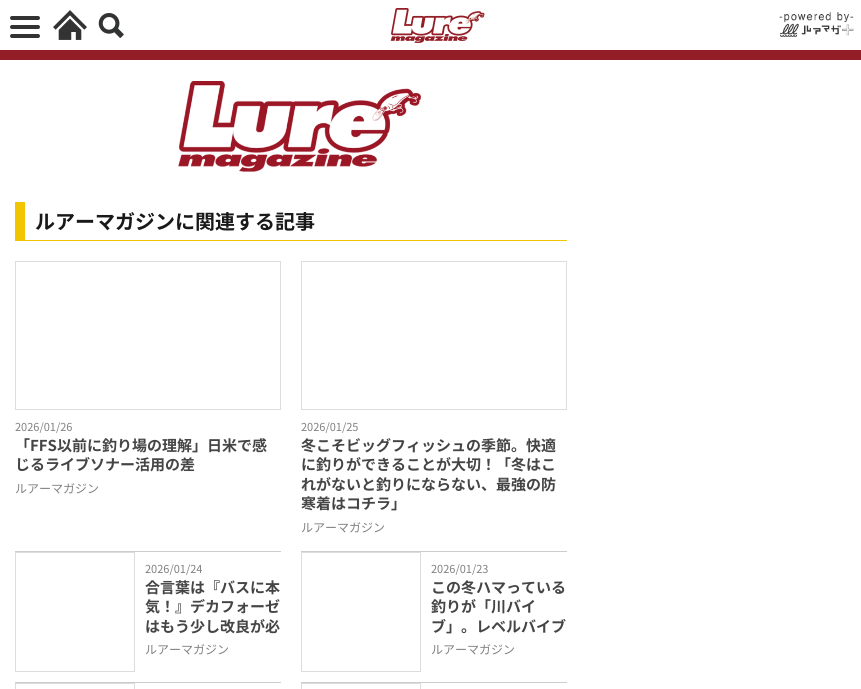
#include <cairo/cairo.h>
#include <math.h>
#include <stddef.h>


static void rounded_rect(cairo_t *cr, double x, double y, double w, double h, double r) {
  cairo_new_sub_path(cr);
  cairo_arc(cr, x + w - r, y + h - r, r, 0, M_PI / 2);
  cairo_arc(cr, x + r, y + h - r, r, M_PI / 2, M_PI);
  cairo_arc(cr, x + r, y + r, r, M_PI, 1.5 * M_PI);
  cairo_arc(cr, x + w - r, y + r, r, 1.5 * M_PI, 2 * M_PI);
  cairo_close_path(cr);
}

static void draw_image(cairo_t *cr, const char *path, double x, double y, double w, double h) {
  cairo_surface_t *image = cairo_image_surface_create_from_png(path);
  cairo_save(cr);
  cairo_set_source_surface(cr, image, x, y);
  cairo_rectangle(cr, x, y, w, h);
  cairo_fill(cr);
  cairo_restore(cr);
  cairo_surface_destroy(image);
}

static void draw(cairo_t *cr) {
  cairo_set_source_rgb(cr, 1, 1, 1);
  cairo_paint(cr);
  cairo_set_source_rgb(cr, 148 / 255.0, 30 / 255.0, 40 / 255.0);
  cairo_rectangle(cr, 0, 50, 861, 10);
  cairo_fill(cr);
  cairo_set_source_rgb(cr, 51 / 255.0, 51 / 255.0, 51 / 255.0);
  rounded_rect(cr, 10, 25, 30, 4, 2);
  cairo_fill(cr);
  rounded_rect(cr, 10, 16, 30, 4, 2);
  cairo_fill(cr);
  rounded_rect(cr, 10, 34, 30, 4, 2);
  cairo_fill(cr);
  draw_image(cr, "images/1.png", 53, 10, 34, 30);
  draw_image(cr, "images/2.png", 98, 13, 26, 25);
  draw_image(cr, "images/3.png", 390, 8, 95, 35);
  draw_image(cr, "images/4.png", 779, 12, 75, 25);
  draw_image(cr, "images/5.png", 178, 81, 243, 91);
  cairo_set_source_rgb(cr, 241 / 255.0, 198 / 255.0, 0);
  cairo_rectangle(cr, 25, 240, 542, 1);
  cairo_fill(cr);
  cairo_rectangle(cr, 15, 202, 10, 39);
  cairo_fill(cr);
  cairo_rectangle(cr, 15.5, 261.5, 265, 148);
  cairo_set_source_rgb(cr, 220 / 255.0, 220 / 255.0, 220 / 255.0);
  cairo_set_line_width(cr, 1);
  cairo_stroke(cr);
  cairo_rectangle(cr, 301.5, 261.5, 265, 148);
  cairo_stroke(cr);
  cairo_set_source_rgb(cr, 204 / 255.0, 204 / 255.0, 204 / 255.0);
  cairo_rectangle(cr, 15, 551, 266, 1);
  cairo_fill(cr);
  cairo_rectangle(cr, 15.5, 552.5, 119, 119);
  cairo_set_source_rgb(cr, 220 / 255.0, 220 / 255.0, 220 / 255.0);
  cairo_stroke(cr);
  cairo_set_source_rgb(cr, 204 / 255.0, 204 / 255.0, 204 / 255.0);
  cairo_rectangle(cr, 301, 551, 266, 1);
  cairo_fill(cr);
  cairo_rectangle(cr, 301.5, 552.5, 119, 119);
  cairo_set_source_rgb(cr, 220 / 255.0, 220 / 255.0, 220 / 255.0);
  cairo_stroke(cr);
  cairo_set_source_rgb(cr, 204 / 255.0, 204 / 255.0, 204 / 255.0);
  cairo_rectangle(cr, 15, 682, 266, 1);
  cairo_fill(cr);
  cairo_rectangle(cr, 15.5, 683.5, 119, 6);
  cairo_set_source_rgb(cr, 220 / 255.0, 220 / 255.0, 220 / 255.0);
  cairo_stroke(cr);
  cairo_set_source_rgb(cr, 204 / 255.0, 204 / 255.0, 204 / 255.0);
  cairo_rectangle(cr, 301, 682, 266, 1);
  cairo_fill(cr);
  cairo_rectangle(cr, 301.5, 683.5, 119, 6);
  cairo_set_source_rgb(cr, 220 / 255.0, 220 / 255.0, 220 / 255.0);
  cairo_stroke(cr);
  cairo_select_font_face(cr, "Noto Sans CJK JP", CAIRO_FONT_SLANT_NORMAL, CAIRO_FONT_WEIGHT_BOLD);
  cairo_set_font_size(cr, 20);
  cairo_set_source_rgb(cr, 25 / 255.0, 25 / 255.0, 25 / 255.0);
  cairo_move_to(cr, 35, 229);
  cairo_show_text(cr, "ルアーマガジンに関連する記事");
  cairo_select_font_face(cr, "Noto Sans CJK JP", CAIRO_FONT_SLANT_NORMAL, CAIRO_FONT_WEIGHT_NORMAL);
  cairo_set_font_size(cr, 11);
  cairo_set_source_rgb(cr, 128 / 255.0, 128 / 255.0, 128 / 255.0);
  cairo_move_to(cr, 15, 431);
  cairo_show_text(cr, "2026/01/26");
  cairo_select_font_face(cr, "Noto Sans CJK JP", CAIRO_FONT_SLANT_NORMAL, CAIRO_FONT_WEIGHT_BOLD);
  cairo_set_font_size(cr, 15);
  cairo_set_source_rgb(cr, 69 / 255.0, 69 / 255.0, 69 / 255.0);
  cairo_move_to(cr, 15, 451);
  cairo_show_text(cr, "「FFS以前に釣り場の理解」日米で感");
  cairo_move_to(cr, 15, 470);
  cairo_show_text(cr, "じるライブソナー活用の差");
  cairo_select_font_face(cr, "Noto Sans CJK JP", CAIRO_FONT_SLANT_NORMAL, CAIRO_FONT_WEIGHT_NORMAL);
  cairo_set_font_size(cr, 12);
  cairo_set_source_rgb(cr, 128 / 255.0, 128 / 255.0, 128 / 255.0);
  cairo_move_to(cr, 15, 493);
  cairo_show_text(cr, "ルアーマガジン");
  cairo_set_font_size(cr, 11);
  cairo_move_to(cr, 301, 431);
  cairo_show_text(cr, "2026/01/25");
  cairo_select_font_face(cr, "Noto Sans CJK JP", CAIRO_FONT_SLANT_NORMAL, CAIRO_FONT_WEIGHT_BOLD);
  cairo_set_font_size(cr, 15);
  cairo_set_source_rgb(cr, 69 / 255.0, 69 / 255.0, 69 / 255.0);
  cairo_move_to(cr, 301, 451);
  cairo_show_text(cr, "冬こそビッグフィッシュの季節。快適");
  cairo_move_to(cr, 301, 470);
  cairo_show_text(cr, "に釣りができることが大切！「冬はこ");
  cairo_move_to(cr, 301, 490);
  cairo_show_text(cr, "れがないと釣りにならない、最強の防");
  cairo_move_to(cr, 301, 509);
  cairo_show_text(cr, "寒着はコチラ」");
  cairo_select_font_face(cr, "Noto Sans CJK JP", CAIRO_FONT_SLANT_NORMAL, CAIRO_FONT_WEIGHT_NORMAL);
  cairo_set_font_size(cr, 12);
  cairo_set_source_rgb(cr, 128 / 255.0, 128 / 255.0, 128 / 255.0);
  cairo_move_to(cr, 301, 532);
  cairo_show_text(cr, "ルアーマガジン");
  cairo_set_font_size(cr, 11);
  cairo_move_to(cr, 145, 573);
  cairo_show_text(cr, "2026/01/24");
  cairo_select_font_face(cr, "Noto Sans CJK JP", CAIRO_FONT_SLANT_NORMAL, CAIRO_FONT_WEIGHT_BOLD);
  cairo_set_font_size(cr, 15);
  cairo_set_source_rgb(cr, 69 / 255.0, 69 / 255.0, 69 / 255.0);
  cairo_move_to(cr, 145, 593);
  cairo_show_text(cr, "合言葉は『バスに本");
  cairo_move_to(cr, 145, 612);
  cairo_show_text(cr, "気！』デカフォーゼ");
  cairo_move_to(cr, 145, 632);
  cairo_show_text(cr, "はもう少し改良が必");
  cairo_select_font_face(cr, "Noto Sans CJK JP", CAIRO_FONT_SLANT_NORMAL, CAIRO_FONT_WEIGHT_NORMAL);
  cairo_set_font_size(cr, 12);
  cairo_set_source_rgb(cr, 128 / 255.0, 128 / 255.0, 128 / 255.0);
  cairo_move_to(cr, 145, 654);
  cairo_show_text(cr, "ルアーマガジン");
  cairo_set_font_size(cr, 11);
  cairo_move_to(cr, 431, 573);
  cairo_show_text(cr, "2026/01/23");
  cairo_select_font_face(cr, "Noto Sans CJK JP", CAIRO_FONT_SLANT_NORMAL, CAIRO_FONT_WEIGHT_BOLD);
  cairo_set_font_size(cr, 15);
  cairo_set_source_rgb(cr, 69 / 255.0, 69 / 255.0, 69 / 255.0);
  cairo_move_to(cr, 431, 593);
  cairo_show_text(cr, "この冬ハマっている");
  cairo_move_to(cr, 431, 612);
  cairo_show_text(cr, "釣りが「川バイ");
  cairo_move_to(cr, 431, 632);
  cairo_show_text(cr, "ブ」。レベルバイブ");
  cairo_select_font_face(cr, "Noto Sans CJK JP", CAIRO_FONT_SLANT_NORMAL, CAIRO_FONT_WEIGHT_NORMAL);
  cairo_set_font_size(cr, 12);
  cairo_set_source_rgb(cr, 128 / 255.0, 128 / 255.0, 128 / 255.0);
  cairo_move_to(cr, 431, 654);
  cairo_show_text(cr, "ルアーマガジン");
}

int main(void) {
  cairo_surface_t *surface = cairo_image_surface_create(CAIRO_FORMAT_RGB24, 861, 689);
  cairo_t *cr = cairo_create(surface);
  cairo_font_options_t *options = cairo_font_options_create();
  cairo_font_options_set_hint_metrics(options, CAIRO_HINT_METRICS_OFF);
  cairo_font_options_set_hint_style(options, CAIRO_HINT_STYLE_NONE);
  cairo_set_font_options(cr, options);
  cairo_set_miter_limit(cr, 4);
  draw(cr);
  cairo_surface_write_to_png(surface, "out.png");
  cairo_font_options_destroy(options);
  cairo_destroy(cr);
  cairo_surface_destroy(surface);
  return 0;
}
